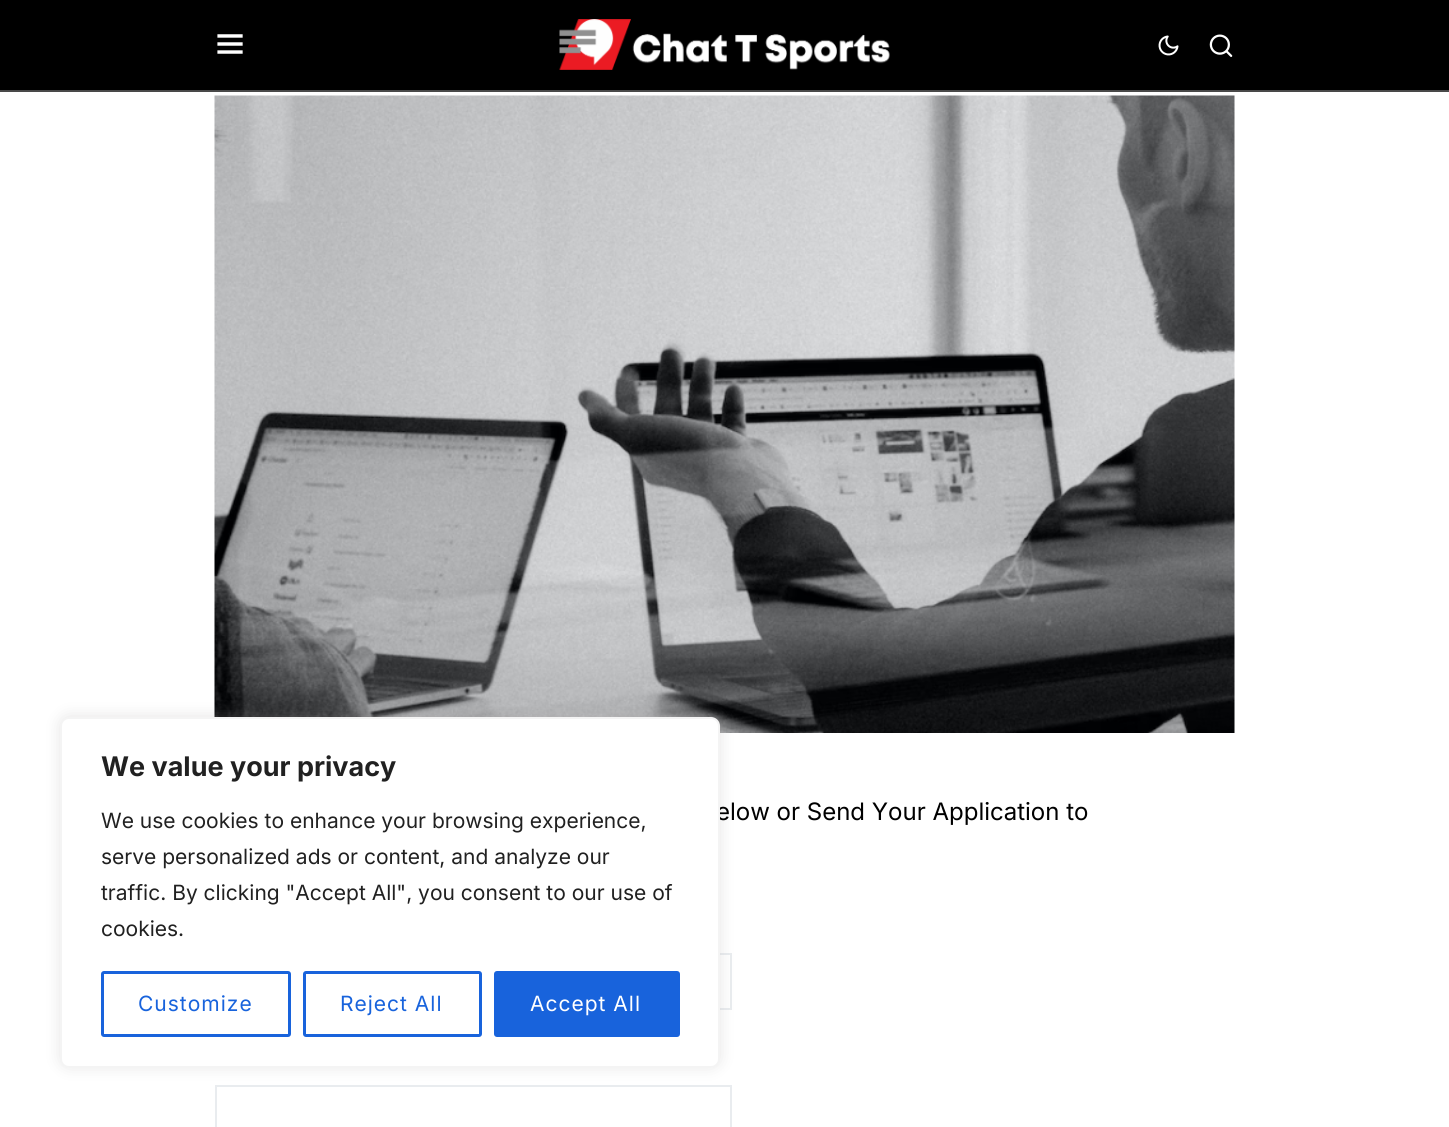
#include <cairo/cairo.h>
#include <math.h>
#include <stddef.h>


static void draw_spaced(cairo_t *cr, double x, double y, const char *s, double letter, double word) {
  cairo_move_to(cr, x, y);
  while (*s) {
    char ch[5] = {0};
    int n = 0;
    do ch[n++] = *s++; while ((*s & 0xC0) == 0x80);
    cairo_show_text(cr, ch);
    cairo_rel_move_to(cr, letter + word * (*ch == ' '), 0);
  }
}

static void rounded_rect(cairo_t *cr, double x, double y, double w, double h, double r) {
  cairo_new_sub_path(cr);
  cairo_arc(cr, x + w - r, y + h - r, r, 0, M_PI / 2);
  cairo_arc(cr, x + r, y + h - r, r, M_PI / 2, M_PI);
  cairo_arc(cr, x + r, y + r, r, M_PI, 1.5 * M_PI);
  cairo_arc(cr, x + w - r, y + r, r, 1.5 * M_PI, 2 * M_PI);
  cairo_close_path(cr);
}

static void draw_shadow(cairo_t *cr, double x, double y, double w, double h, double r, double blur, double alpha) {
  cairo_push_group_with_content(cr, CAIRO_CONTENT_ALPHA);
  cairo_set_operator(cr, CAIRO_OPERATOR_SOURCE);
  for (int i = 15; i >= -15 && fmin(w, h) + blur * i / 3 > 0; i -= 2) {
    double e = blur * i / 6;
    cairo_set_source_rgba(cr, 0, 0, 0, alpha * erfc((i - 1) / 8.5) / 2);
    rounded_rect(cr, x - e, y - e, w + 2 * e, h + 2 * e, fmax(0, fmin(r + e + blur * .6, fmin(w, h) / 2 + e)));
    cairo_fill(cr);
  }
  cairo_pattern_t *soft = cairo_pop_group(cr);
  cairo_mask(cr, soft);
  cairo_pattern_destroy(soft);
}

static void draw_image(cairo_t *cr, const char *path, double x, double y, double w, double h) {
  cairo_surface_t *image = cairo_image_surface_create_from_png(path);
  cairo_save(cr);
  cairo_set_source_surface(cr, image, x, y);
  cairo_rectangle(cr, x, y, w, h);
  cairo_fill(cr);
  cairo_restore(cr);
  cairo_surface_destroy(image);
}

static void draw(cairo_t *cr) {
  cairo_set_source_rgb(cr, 1, 1, 1);
  cairo_paint(cr);
  draw_image(cr, "images/5.png", 214, 95, 1021, 638);
  cairo_rectangle(cr, 216, 954, 515, 55);
  cairo_set_source_rgb(cr, 233 / 255.0, 236 / 255.0, 239 / 255.0);
  cairo_stroke(cr);
  cairo_rectangle(cr, 216, 1086, 515, 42);
  cairo_stroke(cr);
  cairo_set_source_rgb(cr, 172 / 255.0, 171 / 255.0, 171 / 255.0);
  draw_shadow(cr, 60, 716, 660, 351, 9, 7.5, 0.3);
  cairo_set_source_rgb(cr, 0, 0, 0);
  cairo_rectangle(cr, 0, 0, 1449, 90);
  cairo_fill(cr);
  cairo_set_source_rgb(cr, 73 / 255.0, 73 / 255.0, 73 / 255.0);
  cairo_rectangle(cr, 0, 90, 1449, 2);
  cairo_fill(cr);
  draw_image(cr, "images/1.png", 217, 34, 26, 20);
  draw_image(cr, "images/2.png", 559, 19, 331, 51);
  draw_image(cr, "images/3.png", 1158, 35, 21, 21);
  draw_image(cr, "images/4.png", 1209, 34, 24, 23);
  cairo_select_font_face(cr, "Inter", CAIRO_FONT_SLANT_NORMAL, CAIRO_FONT_WEIGHT_NORMAL);
  cairo_set_font_size(cr, 24);
  cairo_set_source_rgb(cr, 0, 0, 0);
  cairo_move_to(cr, 716, 820);
  cairo_show_text(cr, "elow or Send Your Application to");
  cairo_set_source_rgb(cr, 1, 1, 1);
  rounded_rect(cr, 61, 718, 658, 349, 8);
  cairo_fill_preserve(cr);
  cairo_set_source_rgb(cr, 244 / 255.0, 244 / 255.0, 244 / 255.0);
  cairo_stroke(cr);
  cairo_set_source_rgb(cr, 24 / 255.0, 99 / 255.0, 220 / 255.0);
  rounded_rect(cr, 495.5, 972.5, 183, 63, 1.5);
  cairo_fill_preserve(cr);
  cairo_set_line_width(cr, 3);
  cairo_stroke(cr);
  cairo_set_font_size(cr, 21);
  cairo_set_source_rgb(cr, 1, 1, 1);
  draw_spaced(cr, 530, 1011, "Accept All", 1, 0);
  rounded_rect(cr, 304.5, 972.5, 176, 63, 1.5);
  cairo_set_source_rgb(cr, 24 / 255.0, 99 / 255.0, 220 / 255.0);
  cairo_stroke(cr);
  draw_spaced(cr, 340, 1011, "Reject All", 1, 0);
  rounded_rect(cr, 102.5, 972.5, 187, 63, 1.5);
  cairo_stroke(cr);
  draw_spaced(cr, 138, 1011, "Customize", 1, 0);
  cairo_set_source_rgb(cr, 33 / 255.0, 33 / 255.0, 33 / 255.0);
  cairo_move_to(cr, 101, 936);
  cairo_show_text(cr, "cookies.");
  cairo_move_to(cr, 101, 900);
  cairo_show_text(cr, "traffic. By clicking \"Accept All\", you consent to our use of");
  cairo_move_to(cr, 101, 864);
  cairo_show_text(cr, "serve personalized ads or content, and analyze our");
  cairo_move_to(cr, 101, 828);
  cairo_show_text(cr, "We use cookies to enhance your browsing experience,");
  cairo_select_font_face(cr, "Inter", CAIRO_FONT_SLANT_NORMAL, CAIRO_FONT_WEIGHT_BOLD);
  cairo_set_font_size(cr, 27);
  cairo_move_to(cr, 101, 776);
  cairo_show_text(cr, "We value your privacy");
}

int main(void) {
  cairo_surface_t *surface = cairo_image_surface_create(CAIRO_FORMAT_RGB24, 1449, 1127);
  cairo_t *cr = cairo_create(surface);
  cairo_font_options_t *options = cairo_font_options_create();
  cairo_font_options_set_hint_metrics(options, CAIRO_HINT_METRICS_OFF);
  cairo_font_options_set_hint_style(options, CAIRO_HINT_STYLE_NONE);
  cairo_set_font_options(cr, options);
  cairo_set_miter_limit(cr, 4);
  draw(cr);
  cairo_surface_write_to_png(surface, "out.png");
  cairo_font_options_destroy(options);
  cairo_destroy(cr);
  cairo_surface_destroy(surface);
  return 0;
}
